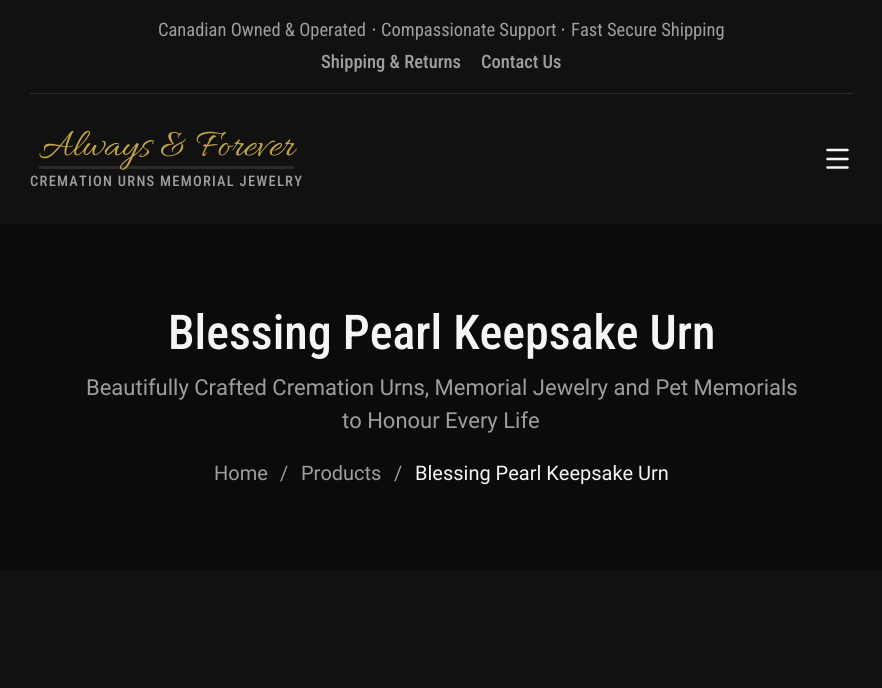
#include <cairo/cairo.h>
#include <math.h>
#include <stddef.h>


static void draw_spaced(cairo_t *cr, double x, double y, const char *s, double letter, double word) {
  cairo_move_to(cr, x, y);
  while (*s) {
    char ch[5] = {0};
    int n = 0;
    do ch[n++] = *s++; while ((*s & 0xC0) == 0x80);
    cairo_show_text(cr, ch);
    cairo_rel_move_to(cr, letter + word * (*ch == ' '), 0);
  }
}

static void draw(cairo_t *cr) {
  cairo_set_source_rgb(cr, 17 / 255.0, 17 / 255.0, 17 / 255.0);
  cairo_paint(cr);
  cairo_set_source_rgb(cr, 43 / 255.0, 43 / 255.0, 43 / 255.0);
  cairo_rectangle(cr, 30, 93, 823, 1);
  cairo_fill(cr);
  cairo_rectangle(cr, 39, 166, 255, 3);
  cairo_fill(cr);
  cairo_new_path(cr);
  cairo_move_to(cr, 827.5, 150);
  cairo_line_to(cr, 847.5, 150);
  cairo_move_to(cr, 827.5, 159);
  cairo_line_to(cr, 847.5, 159);
  cairo_move_to(cr, 827.5, 167.5);
  cairo_line_to(cr, 847.5, 167.5);
  cairo_set_source_rgb(cr, 245 / 255.0, 245 / 255.0, 245 / 255.0);
  cairo_set_line_width(cr, 2.5);
  cairo_set_line_cap(cr, CAIRO_LINE_CAP_ROUND);
  cairo_set_line_join(cr, CAIRO_LINE_JOIN_ROUND);
  cairo_stroke(cr);
  cairo_set_source_rgb(cr, 9 / 255.0, 11 / 255.0, 13 / 255.0);
  cairo_rectangle(cr, 0, 224, 882, 346);
  cairo_fill(cr);
  cairo_select_font_face(cr, "Roboto Condensed", CAIRO_FONT_SLANT_NORMAL, CAIRO_FONT_WEIGHT_NORMAL);
  cairo_set_font_size(cr, 18.5);
  cairo_set_source_rgb(cr, 158 / 255.0, 158 / 255.0, 158 / 255.0);
  cairo_move_to(cr, 158, 36);
  cairo_show_text(cr, "Canadian Owned & Operated");
  cairo_select_font_face(cr, "DejaVu Sans", CAIRO_FONT_SLANT_NORMAL, CAIRO_FONT_WEIGHT_NORMAL);
  cairo_move_to(cr, 371, 36);
  cairo_show_text(cr, "⋅");
  cairo_select_font_face(cr, "Roboto Condensed", CAIRO_FONT_SLANT_NORMAL, CAIRO_FONT_WEIGHT_NORMAL);
  cairo_move_to(cr, 381, 36);
  cairo_show_text(cr, "Compassionate Support");
  cairo_select_font_face(cr, "DejaVu Sans", CAIRO_FONT_SLANT_NORMAL, CAIRO_FONT_WEIGHT_NORMAL);
  cairo_move_to(cr, 560, 36);
  cairo_show_text(cr, "⋅");
  cairo_select_font_face(cr, "Roboto Condensed", CAIRO_FONT_SLANT_NORMAL, CAIRO_FONT_WEIGHT_NORMAL);
  cairo_move_to(cr, 571, 36);
  cairo_show_text(cr, "Fast Secure Shipping");
  cairo_select_font_face(cr, "Roboto Condensed Medium", CAIRO_FONT_SLANT_NORMAL, CAIRO_FONT_WEIGHT_NORMAL);
  cairo_move_to(cr, 321, 68);
  cairo_show_text(cr, "Shipping & Returns");
  cairo_move_to(cr, 481, 68);
  cairo_show_text(cr, "Contact Us");
  cairo_select_font_face(cr, "Allura", CAIRO_FONT_SLANT_NORMAL, CAIRO_FONT_WEIGHT_NORMAL);
  cairo_set_font_size(cr, 40);
  cairo_set_source_rgb(cr, 195 / 255.0, 164 / 255.0, 70 / 255.0);
  cairo_move_to(cr, 39, 155);
  cairo_show_text(cr, "Always & Forever");
  cairo_select_font_face(cr, "Roboto Condensed Medium", CAIRO_FONT_SLANT_NORMAL, CAIRO_FONT_WEIGHT_NORMAL);
  cairo_set_font_size(cr, 14.5);
  cairo_set_source_rgb(cr, 158 / 255.0, 158 / 255.0, 158 / 255.0);
  draw_spaced(cr, 30, 186, "CREMATION URNS MEMORIAL JEWELRY", 1.25, 0);
  cairo_set_font_size(cr, 48);
  cairo_set_source_rgb(cr, 245 / 255.0, 245 / 255.0, 245 / 255.0);
  cairo_move_to(cr, 168, 349);
  cairo_show_text(cr, "Blessing Pearl Keepsake Urn");
  cairo_select_font_face(cr, "Roboto", CAIRO_FONT_SLANT_NORMAL, CAIRO_FONT_WEIGHT_NORMAL);
  cairo_set_font_size(cr, 22);
  cairo_set_source_rgb(cr, 158 / 255.0, 158 / 255.0, 158 / 255.0);
  cairo_move_to(cr, 86, 395);
  cairo_show_text(cr, "Beautifully Crafted Cremation Urns, Memorial Jewelry and Pet Memorials");
  cairo_move_to(cr, 342, 428);
  cairo_show_text(cr, "to Honour Every Life");
  cairo_set_font_size(cr, 20);
  cairo_move_to(cr, 214, 480);
  cairo_show_text(cr, "Home");
  cairo_move_to(cr, 280, 480);
  cairo_show_text(cr, "/");
  cairo_move_to(cr, 301, 480);
  cairo_show_text(cr, "Products");
  cairo_move_to(cr, 394, 480);
  cairo_show_text(cr, "/");
  cairo_set_source_rgb(cr, 245 / 255.0, 245 / 255.0, 245 / 255.0);
  cairo_move_to(cr, 415, 480);
  cairo_show_text(cr, "Blessing Pearl Keepsake Urn");
}

int main(void) {
  cairo_surface_t *surface = cairo_image_surface_create(CAIRO_FORMAT_RGB24, 882, 688);
  cairo_t *cr = cairo_create(surface);
  cairo_font_options_t *options = cairo_font_options_create();
  cairo_font_options_set_hint_metrics(options, CAIRO_HINT_METRICS_OFF);
  cairo_font_options_set_hint_style(options, CAIRO_HINT_STYLE_NONE);
  cairo_set_font_options(cr, options);
  cairo_set_miter_limit(cr, 4);
  draw(cr);
  cairo_surface_write_to_png(surface, "out.png");
  cairo_font_options_destroy(options);
  cairo_destroy(cr);
  cairo_surface_destroy(surface);
  return 0;
}
